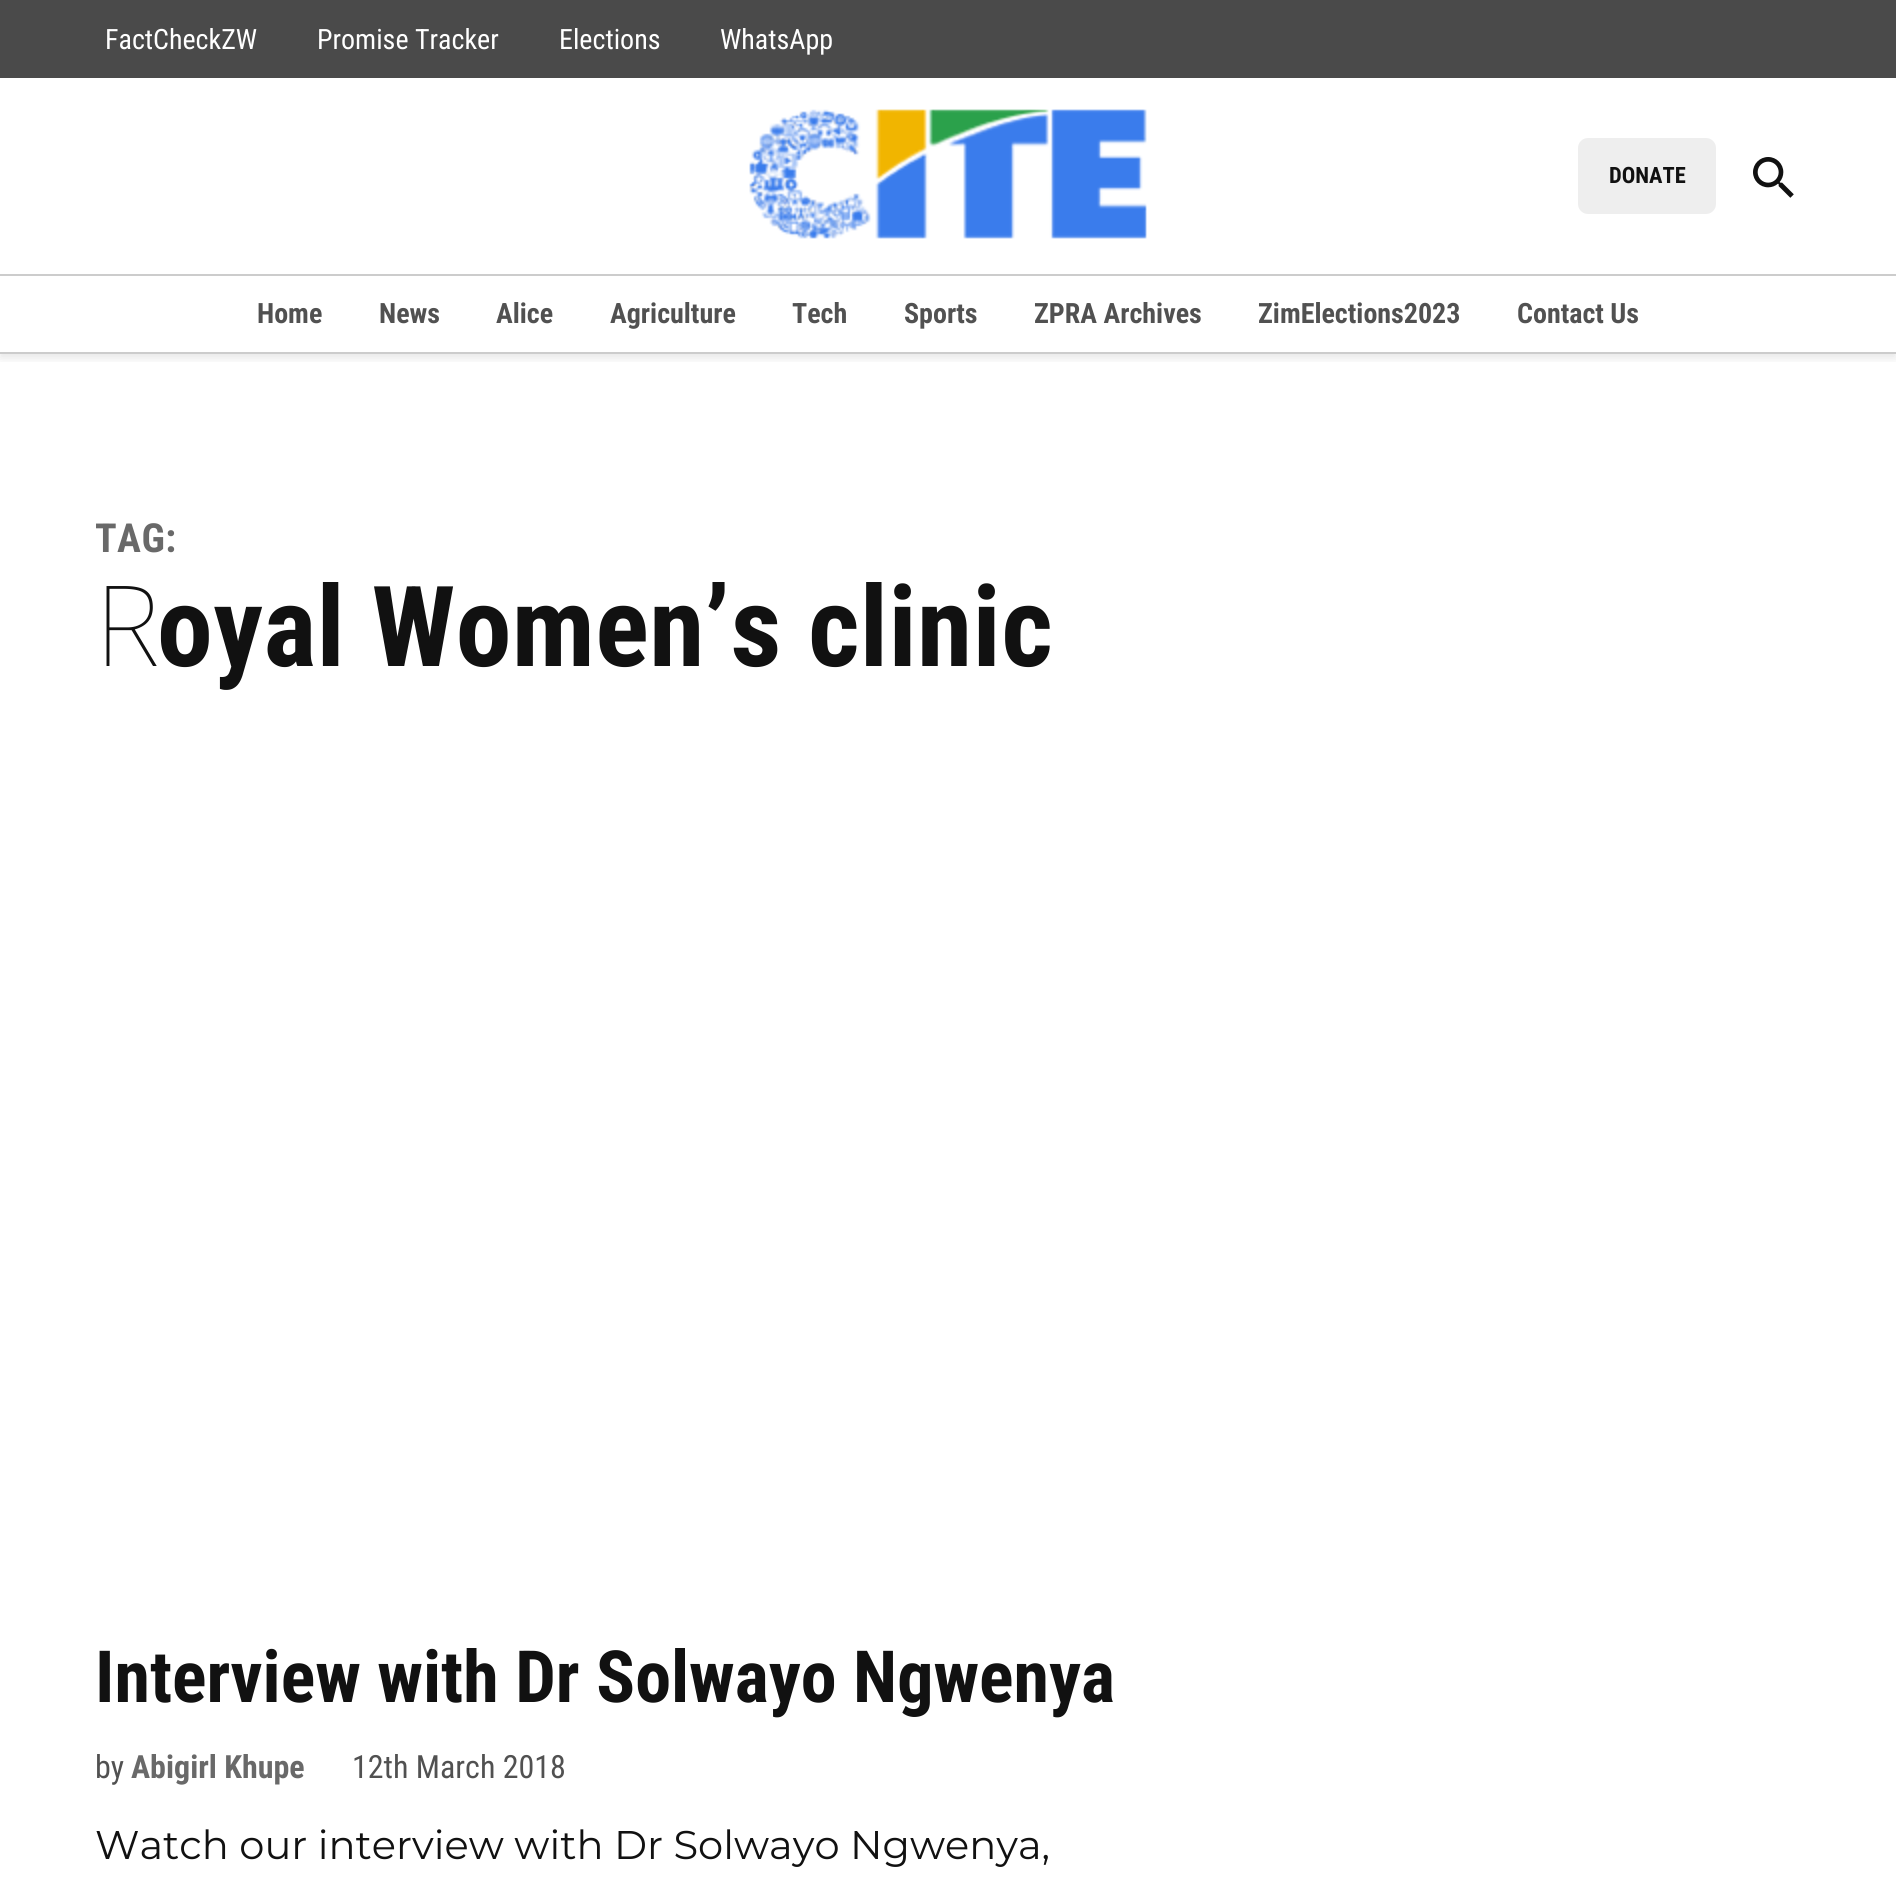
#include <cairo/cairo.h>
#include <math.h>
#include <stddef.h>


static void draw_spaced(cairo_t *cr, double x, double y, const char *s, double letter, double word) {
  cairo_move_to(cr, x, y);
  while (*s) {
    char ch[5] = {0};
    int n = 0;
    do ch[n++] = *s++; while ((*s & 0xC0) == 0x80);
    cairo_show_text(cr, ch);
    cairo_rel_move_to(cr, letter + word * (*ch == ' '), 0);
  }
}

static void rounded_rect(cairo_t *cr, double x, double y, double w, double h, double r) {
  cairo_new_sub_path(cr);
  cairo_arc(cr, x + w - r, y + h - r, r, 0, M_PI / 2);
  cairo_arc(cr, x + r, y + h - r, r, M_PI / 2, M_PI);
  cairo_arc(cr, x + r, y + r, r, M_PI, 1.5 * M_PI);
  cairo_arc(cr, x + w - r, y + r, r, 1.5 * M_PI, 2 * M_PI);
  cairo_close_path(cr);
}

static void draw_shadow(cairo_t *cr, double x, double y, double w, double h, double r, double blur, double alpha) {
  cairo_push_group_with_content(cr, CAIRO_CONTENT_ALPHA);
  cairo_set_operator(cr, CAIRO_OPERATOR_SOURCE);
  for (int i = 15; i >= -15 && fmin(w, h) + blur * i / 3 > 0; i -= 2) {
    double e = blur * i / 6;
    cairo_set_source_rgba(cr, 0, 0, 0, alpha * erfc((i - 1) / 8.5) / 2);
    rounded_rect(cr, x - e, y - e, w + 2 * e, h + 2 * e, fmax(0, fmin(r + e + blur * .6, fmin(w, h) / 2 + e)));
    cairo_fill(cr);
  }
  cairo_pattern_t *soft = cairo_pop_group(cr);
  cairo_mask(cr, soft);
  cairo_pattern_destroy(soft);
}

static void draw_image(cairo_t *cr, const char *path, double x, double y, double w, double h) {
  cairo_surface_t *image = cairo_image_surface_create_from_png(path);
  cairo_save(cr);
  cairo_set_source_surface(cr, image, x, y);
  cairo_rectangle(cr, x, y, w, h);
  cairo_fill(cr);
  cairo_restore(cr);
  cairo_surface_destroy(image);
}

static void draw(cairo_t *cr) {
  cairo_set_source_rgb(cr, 1, 1, 1);
  cairo_paint(cr);
  cairo_save(cr);
  cairo_rectangle(cr, 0, 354, 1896, 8);
  cairo_clip(cr);
  cairo_set_source_rgb(cr, 0, 0, 0);
  draw_shadow(cr, 0, 4, 1896, 354, 0, 5, 0.1);
  cairo_restore(cr);
  cairo_set_source_rgb(cr, 74 / 255.0, 74 / 255.0, 74 / 255.0);
  cairo_rectangle(cr, 0, 0, 1896, 78);
  cairo_fill(cr);
  draw_image(cr, "images/1.png", 749, 109, 398, 130);
  cairo_set_source_rgb(cr, 238 / 255.0, 238 / 255.0, 238 / 255.0);
  rounded_rect(cr, 1578, 138, 138, 76, 10);
  cairo_fill(cr);
  draw_image(cr, "images/2.png", 1753, 157, 41, 41);
  cairo_set_source_rgb(cr, 204 / 255.0, 204 / 255.0, 204 / 255.0);
  cairo_rectangle(cr, 0, 274, 1896, 2);
  cairo_fill(cr);
  cairo_rectangle(cr, 0, 352, 1896, 2);
  cairo_fill(cr);
  cairo_select_font_face(cr, "Roboto Condensed", CAIRO_FONT_SLANT_NORMAL, CAIRO_FONT_WEIGHT_NORMAL);
  cairo_set_font_size(cr, 28);
  cairo_set_source_rgb(cr, 1, 1, 1);
  cairo_move_to(cr, 105, 49);
  cairo_show_text(cr, "FactCheckZW");
  cairo_move_to(cr, 317, 49);
  cairo_show_text(cr, "Promise Tracker");
  cairo_move_to(cr, 559, 49);
  cairo_show_text(cr, "Elections");
  cairo_move_to(cr, 720, 49);
  cairo_show_text(cr, "WhatsApp");
  cairo_select_font_face(cr, "Roboto Condensed", CAIRO_FONT_SLANT_NORMAL, CAIRO_FONT_WEIGHT_BOLD);
  cairo_set_font_size(cr, 22.5);
  cairo_set_source_rgb(cr, 17 / 255.0, 17 / 255.0, 17 / 255.0);
  cairo_move_to(cr, 1609, 183);
  cairo_show_text(cr, "DONATE");
  cairo_set_font_size(cr, 28);
  cairo_set_source_rgb(cr, 81 / 255.0, 81 / 255.0, 81 / 255.0);
  cairo_move_to(cr, 257, 323);
  cairo_show_text(cr, "Home");
  cairo_move_to(cr, 379, 323);
  cairo_show_text(cr, "News");
  cairo_move_to(cr, 496, 323);
  cairo_show_text(cr, "Alice");
  cairo_move_to(cr, 610, 323);
  cairo_show_text(cr, "Agriculture");
  cairo_move_to(cr, 792, 323);
  cairo_show_text(cr, "Tech");
  cairo_move_to(cr, 904, 323);
  cairo_show_text(cr, "Sports");
  cairo_move_to(cr, 1034, 323);
  cairo_show_text(cr, "ZPRA Archives");
  cairo_move_to(cr, 1258, 323);
  cairo_show_text(cr, "ZimElections2023");
  cairo_move_to(cr, 1517, 323);
  cairo_show_text(cr, "Contact Us");
  cairo_set_font_size(cr, 40);
  cairo_set_source_rgb(cr, 105 / 255.0, 105 / 255.0, 105 / 255.0);
  draw_spaced(cr, 95, 552, "TAG:", 0.4, 0);
  cairo_select_font_face(cr, "Noto Sans Thin", CAIRO_FONT_SLANT_NORMAL, CAIRO_FONT_WEIGHT_NORMAL);
  cairo_set_font_size(cr, 112);
  cairo_set_source_rgb(cr, 17 / 255.0, 17 / 255.0, 17 / 255.0);
  draw_spaced(cr, 95, 666, "R", 0.4, 0);
  cairo_select_font_face(cr, "Roboto Condensed", CAIRO_FONT_SLANT_NORMAL, CAIRO_FONT_WEIGHT_BOLD);
  draw_spaced(cr, 157, 666, "oyal Women’s clinic", 0.4, 0);
  cairo_set_font_size(cr, 72);
  cairo_move_to(cr, 95, 1702);
  cairo_show_text(cr, "Interview with Dr Solwayo Ngwenya");
  cairo_select_font_face(cr, "Roboto Condensed", CAIRO_FONT_SLANT_NORMAL, CAIRO_FONT_WEIGHT_NORMAL);
  cairo_set_font_size(cr, 32);
  cairo_set_source_rgb(cr, 81 / 255.0, 81 / 255.0, 81 / 255.0);
  cairo_move_to(cr, 95, 1778);
  cairo_show_text(cr, "by");
  cairo_select_font_face(cr, "Roboto Condensed", CAIRO_FONT_SLANT_NORMAL, CAIRO_FONT_WEIGHT_BOLD);
  cairo_set_source_rgb(cr, 105 / 255.0, 105 / 255.0, 105 / 255.0);
  cairo_move_to(cr, 131, 1778);
  cairo_show_text(cr, "Abigirl Khupe");
  cairo_select_font_face(cr, "Roboto Condensed", CAIRO_FONT_SLANT_NORMAL, CAIRO_FONT_WEIGHT_NORMAL);
  cairo_set_source_rgb(cr, 81 / 255.0, 81 / 255.0, 81 / 255.0);
  cairo_move_to(cr, 352, 1778);
  cairo_show_text(cr, "12th March 2018");
  cairo_select_font_face(cr, "Montserrat", CAIRO_FONT_SLANT_NORMAL, CAIRO_FONT_WEIGHT_NORMAL);
  cairo_set_font_size(cr, 40);
  cairo_set_source_rgb(cr, 17 / 255.0, 17 / 255.0, 17 / 255.0);
  cairo_move_to(cr, 95, 1859);
  cairo_show_text(cr, "Watch our interview with Dr Solwayo Ngwenya,");
}

int main(void) {
  cairo_surface_t *surface = cairo_image_surface_create(CAIRO_FORMAT_RGB24, 1896, 1890);
  cairo_t *cr = cairo_create(surface);
  cairo_font_options_t *options = cairo_font_options_create();
  cairo_font_options_set_hint_metrics(options, CAIRO_HINT_METRICS_OFF);
  cairo_font_options_set_hint_style(options, CAIRO_HINT_STYLE_NONE);
  cairo_set_font_options(cr, options);
  cairo_set_miter_limit(cr, 4);
  draw(cr);
  cairo_surface_write_to_png(surface, "out.png");
  cairo_font_options_destroy(options);
  cairo_destroy(cr);
  cairo_surface_destroy(surface);
  return 0;
}
